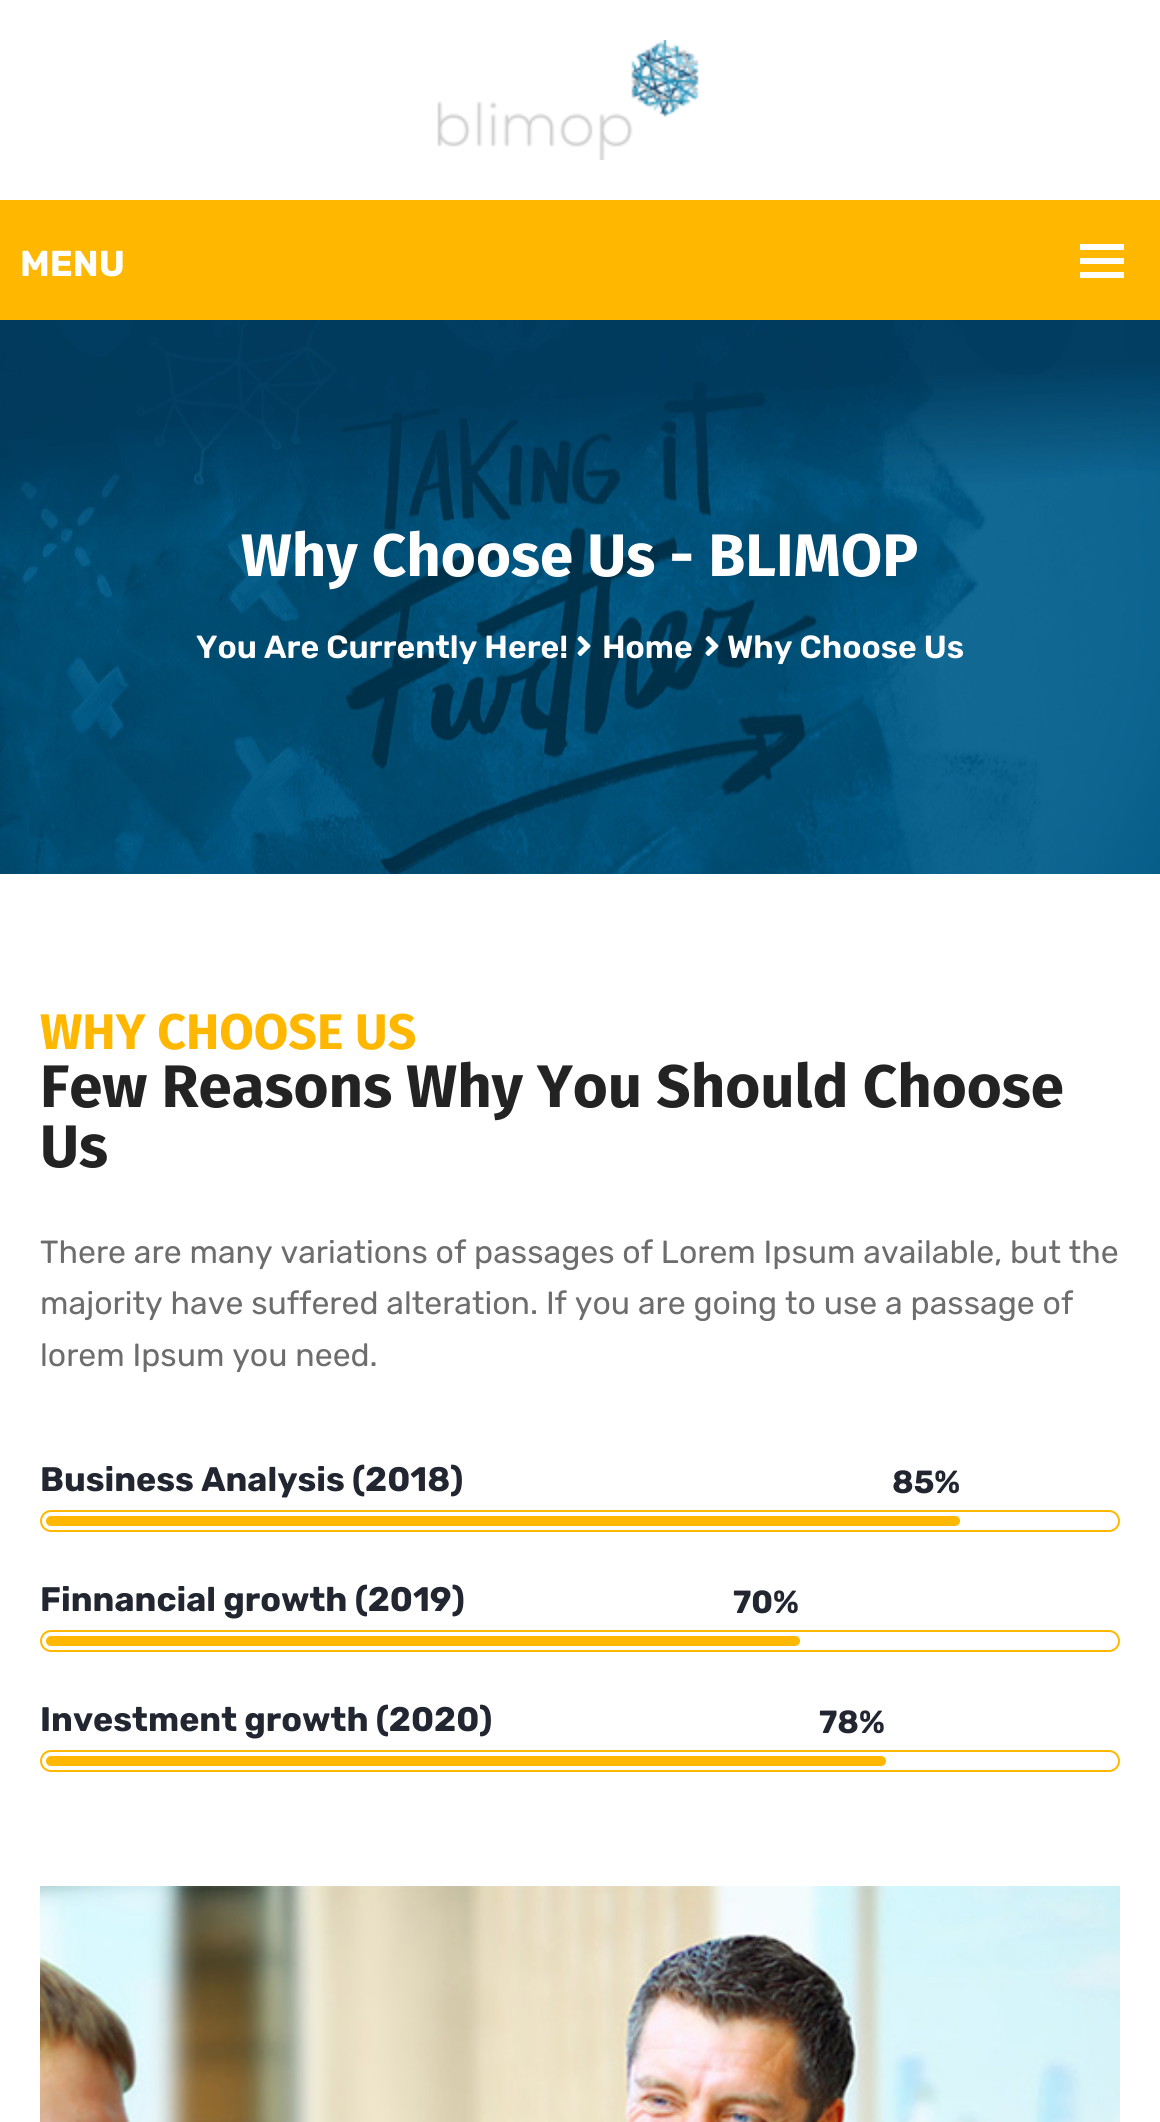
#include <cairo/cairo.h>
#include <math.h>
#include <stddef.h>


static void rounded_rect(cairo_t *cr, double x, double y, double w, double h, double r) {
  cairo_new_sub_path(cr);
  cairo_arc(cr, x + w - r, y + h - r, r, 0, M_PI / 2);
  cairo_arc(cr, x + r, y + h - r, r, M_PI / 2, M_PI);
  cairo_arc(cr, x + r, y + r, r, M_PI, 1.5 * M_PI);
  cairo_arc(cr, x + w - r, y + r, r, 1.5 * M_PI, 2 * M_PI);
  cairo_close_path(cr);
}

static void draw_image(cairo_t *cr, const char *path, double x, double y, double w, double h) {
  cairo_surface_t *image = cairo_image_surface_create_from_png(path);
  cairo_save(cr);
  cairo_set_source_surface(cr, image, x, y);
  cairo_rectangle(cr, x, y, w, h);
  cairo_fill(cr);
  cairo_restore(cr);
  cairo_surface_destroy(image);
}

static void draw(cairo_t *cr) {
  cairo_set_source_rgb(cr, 1, 1, 1);
  cairo_paint(cr);
  draw_image(cr, "images/1.png", 437, 40, 262, 120);
  cairo_set_source_rgb(cr, 1, 183 / 255.0, 0);
  cairo_rectangle(cr, 0, 200, 1160, 120);
  cairo_fill(cr);
  cairo_set_source_rgb(cr, 1, 1, 1);
  cairo_rectangle(cr, 1080, 244, 44, 6);
  cairo_fill(cr);
  cairo_rectangle(cr, 1080, 258, 44, 6);
  cairo_fill(cr);
  cairo_rectangle(cr, 1080, 272, 44, 6);
  cairo_fill(cr);
  draw_image(cr, "images/2.png", 0, 320, 1160, 554);
  draw_image(cr, "images/3.png", 577, 636, 14, 20);
  draw_image(cr, "images/4.png", 705, 636, 14, 20);
  rounded_rect(cr, 41, 1511, 1078, 20, 10);
  cairo_set_source_rgb(cr, 1, 183 / 255.0, 0);
  cairo_stroke(cr);
  rounded_rect(cr, 46, 1516, 914, 10, 5);
  cairo_fill(cr);
  rounded_rect(cr, 41, 1631, 1078, 20, 10);
  cairo_stroke(cr);
  rounded_rect(cr, 46, 1636, 754, 10, 5);
  cairo_fill(cr);
  rounded_rect(cr, 41, 1751, 1078, 20, 10);
  cairo_stroke(cr);
  rounded_rect(cr, 46, 1756, 840, 10, 5);
  cairo_fill(cr);
  draw_image(cr, "images/5.png", 40, 1886, 1080, 236);
  cairo_select_font_face(cr, "Rubik", CAIRO_FONT_SLANT_NORMAL, CAIRO_FONT_WEIGHT_BOLD);
  cairo_set_font_size(cr, 36);
  cairo_set_source_rgb(cr, 1, 1, 1);
  cairo_move_to(cr, 20, 276);
  cairo_show_text(cr, "MENU");
  cairo_select_font_face(cr, "Fira Sans", CAIRO_FONT_SLANT_NORMAL, CAIRO_FONT_WEIGHT_BOLD);
  cairo_set_font_size(cr, 60);
  cairo_move_to(cr, 241, 576);
  cairo_show_text(cr, "Why Choose Us - BLIMOP");
  cairo_select_font_face(cr, "Rubik SemiBold", CAIRO_FONT_SLANT_NORMAL, CAIRO_FONT_WEIGHT_NORMAL);
  cairo_set_font_size(cr, 32);
  cairo_move_to(cr, 196, 658);
  cairo_show_text(cr, "You Are Currently Here!");
  cairo_move_to(cr, 602, 658);
  cairo_show_text(cr, "Home");
  cairo_move_to(cr, 727, 658);
  cairo_show_text(cr, "Why Choose Us");
  cairo_select_font_face(cr, "Fira Sans", CAIRO_FONT_SLANT_NORMAL, CAIRO_FONT_WEIGHT_BOLD);
  cairo_set_font_size(cr, 50);
  cairo_set_source_rgb(cr, 1, 183 / 255.0, 0);
  cairo_move_to(cr, 40, 1049);
  cairo_show_text(cr, "WHY CHOOSE US");
  cairo_set_font_size(cr, 60);
  cairo_set_source_rgb(cr, 35 / 255.0, 35 / 255.0, 35 / 255.0);
  cairo_move_to(cr, 40, 1107);
  cairo_show_text(cr, "Few Reasons Why You Should Choose");
  cairo_move_to(cr, 40, 1167);
  cairo_show_text(cr, "Us");
  cairo_select_font_face(cr, "Rubik", CAIRO_FONT_SLANT_NORMAL, CAIRO_FONT_WEIGHT_NORMAL);
  cairo_set_font_size(cr, 32);
  cairo_set_source_rgb(cr, 109 / 255.0, 109 / 255.0, 109 / 255.0);
  cairo_move_to(cr, 40, 1263);
  cairo_show_text(cr, "There are many variations of passages of Lorem Ipsum available, but the");
  cairo_move_to(cr, 40, 1314);
  cairo_show_text(cr, "majority have suffered alteration. If you are going to use a passage of");
  cairo_move_to(cr, 40, 1366);
  cairo_show_text(cr, "lorem Ipsum you need.");
  cairo_select_font_face(cr, "Rubik", CAIRO_FONT_SLANT_NORMAL, CAIRO_FONT_WEIGHT_BOLD);
  cairo_set_font_size(cr, 34);
  cairo_set_source_rgb(cr, 34 / 255.0, 38 / 255.0, 49 / 255.0);
  cairo_move_to(cr, 40, 1491);
  cairo_show_text(cr, "Business Analysis (2018)");
  cairo_set_font_size(cr, 32);
  cairo_move_to(cr, 892, 1493);
  cairo_show_text(cr, "85%");
  cairo_set_font_size(cr, 34);
  cairo_move_to(cr, 40, 1611);
  cairo_show_text(cr, "Finnancial growth (2019)");
  cairo_set_font_size(cr, 32);
  cairo_move_to(cr, 733, 1613);
  cairo_show_text(cr, "70%");
  cairo_set_font_size(cr, 34);
  cairo_move_to(cr, 40, 1731);
  cairo_show_text(cr, "Investment growth (2020)");
  cairo_set_font_size(cr, 32);
  cairo_move_to(cr, 819, 1733);
  cairo_show_text(cr, "78%");
}

int main(void) {
  cairo_surface_t *surface = cairo_image_surface_create(CAIRO_FORMAT_RGB24, 1160, 2122);
  cairo_t *cr = cairo_create(surface);
  cairo_font_options_t *options = cairo_font_options_create();
  cairo_font_options_set_hint_metrics(options, CAIRO_HINT_METRICS_OFF);
  cairo_font_options_set_hint_style(options, CAIRO_HINT_STYLE_NONE);
  cairo_set_font_options(cr, options);
  cairo_set_miter_limit(cr, 4);
  draw(cr);
  cairo_surface_write_to_png(surface, "out.png");
  cairo_font_options_destroy(options);
  cairo_destroy(cr);
  cairo_surface_destroy(surface);
  return 0;
}
